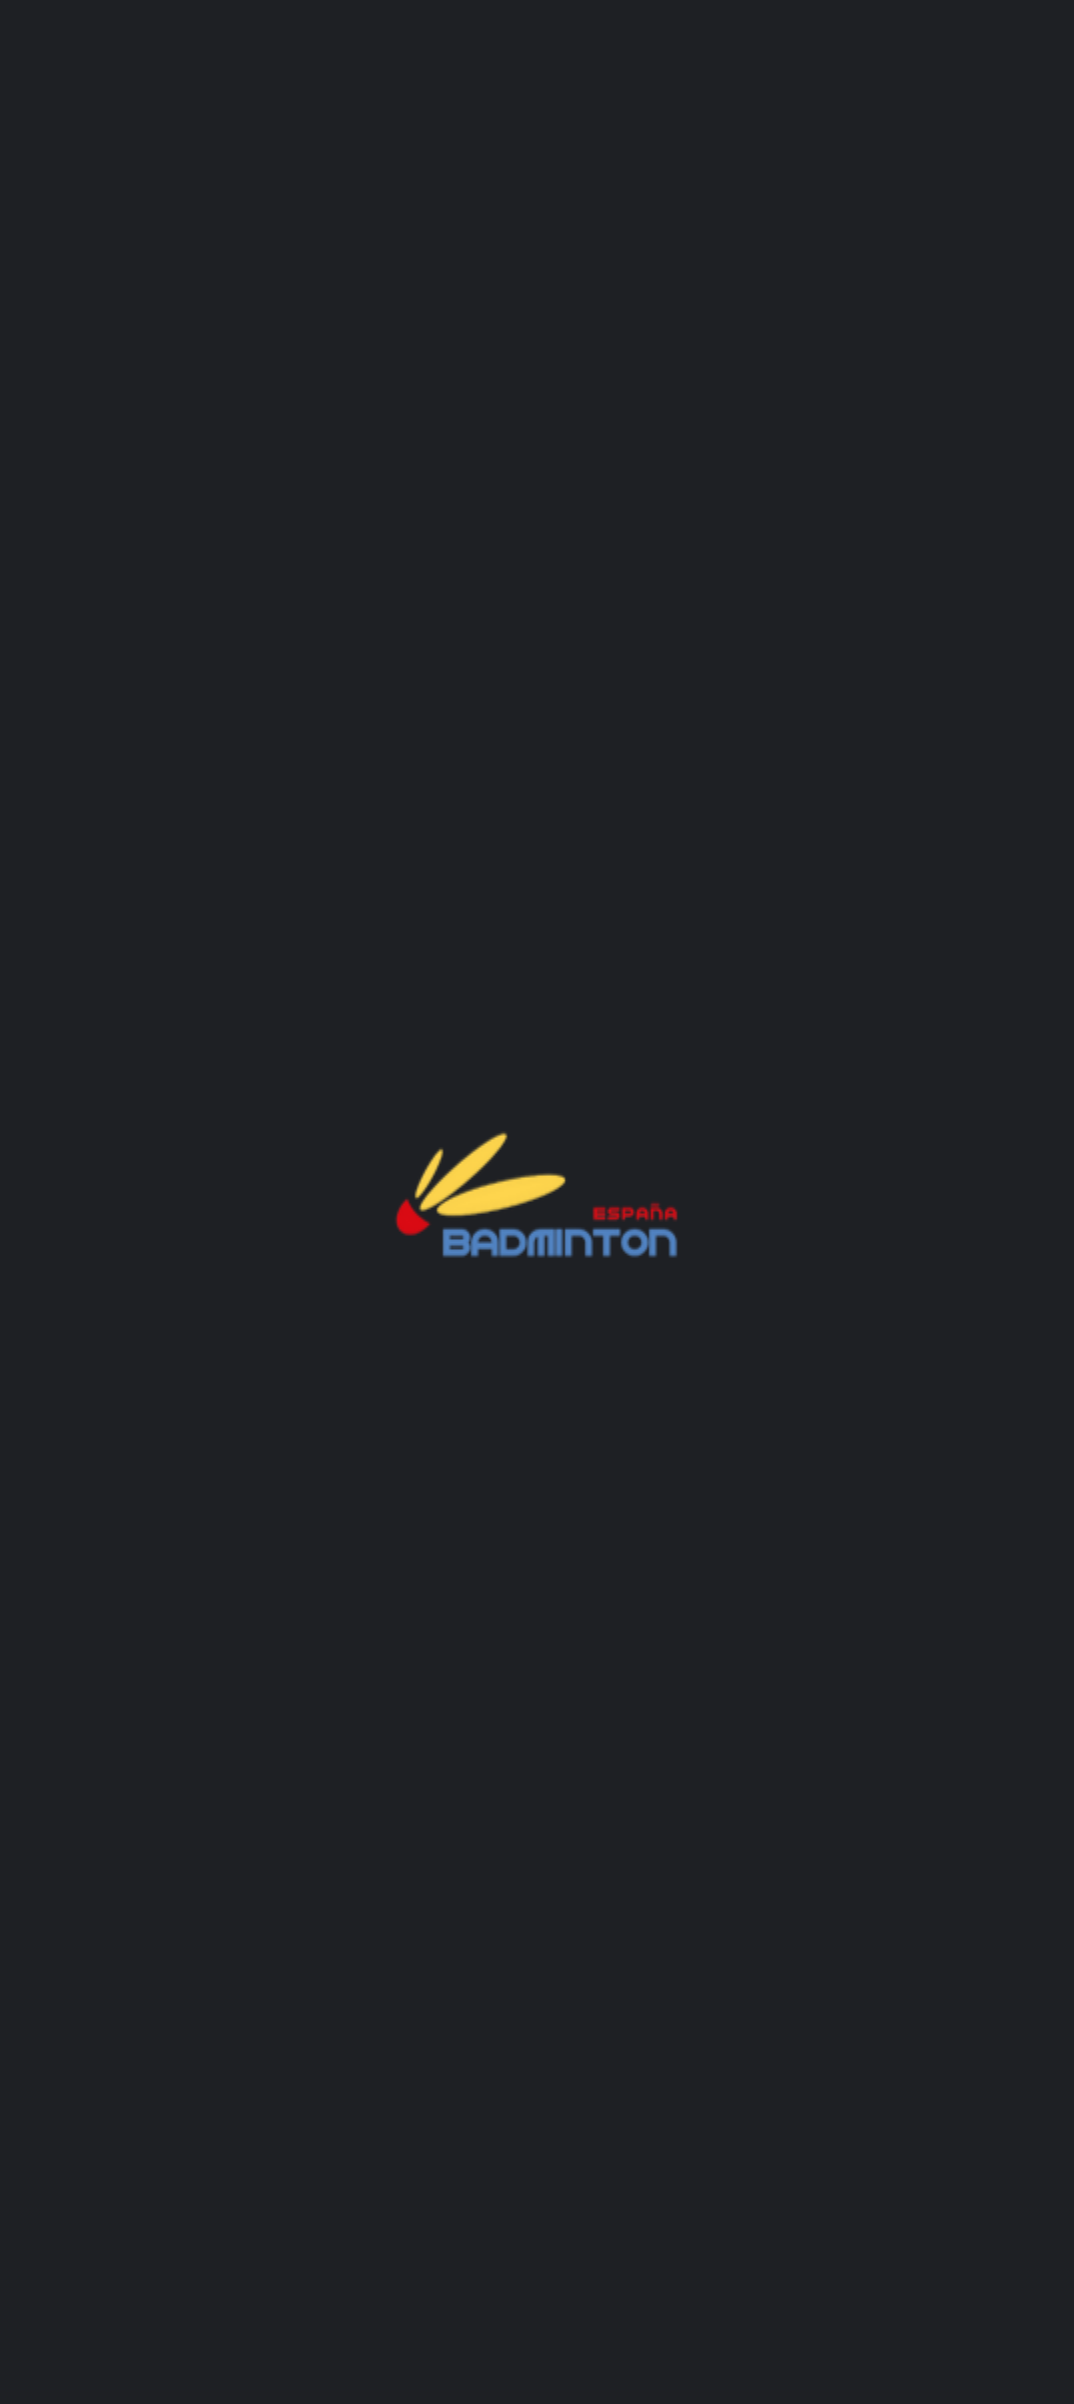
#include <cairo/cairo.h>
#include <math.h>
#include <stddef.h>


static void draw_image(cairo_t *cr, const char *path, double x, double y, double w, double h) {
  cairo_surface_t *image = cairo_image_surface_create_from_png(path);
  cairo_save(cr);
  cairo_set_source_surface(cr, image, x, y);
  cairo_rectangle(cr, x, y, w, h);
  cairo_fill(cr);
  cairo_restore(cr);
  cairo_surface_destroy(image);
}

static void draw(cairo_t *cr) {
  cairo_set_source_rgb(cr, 30 / 255.0, 32 / 255.0, 36 / 255.0);
  cairo_paint(cr);
  draw_image(cr, "images/1.png", 394, 1131, 284, 127);
}

int main(void) {
  cairo_surface_t *surface = cairo_image_surface_create(CAIRO_FORMAT_RGB24, 1074, 2404);
  cairo_t *cr = cairo_create(surface);
  cairo_font_options_t *options = cairo_font_options_create();
  cairo_font_options_set_hint_metrics(options, CAIRO_HINT_METRICS_OFF);
  cairo_font_options_set_hint_style(options, CAIRO_HINT_STYLE_NONE);
  cairo_set_font_options(cr, options);
  cairo_set_miter_limit(cr, 4);
  draw(cr);
  cairo_surface_write_to_png(surface, "out.png");
  cairo_font_options_destroy(options);
  cairo_destroy(cr);
  cairo_surface_destroy(surface);
  return 0;
}
